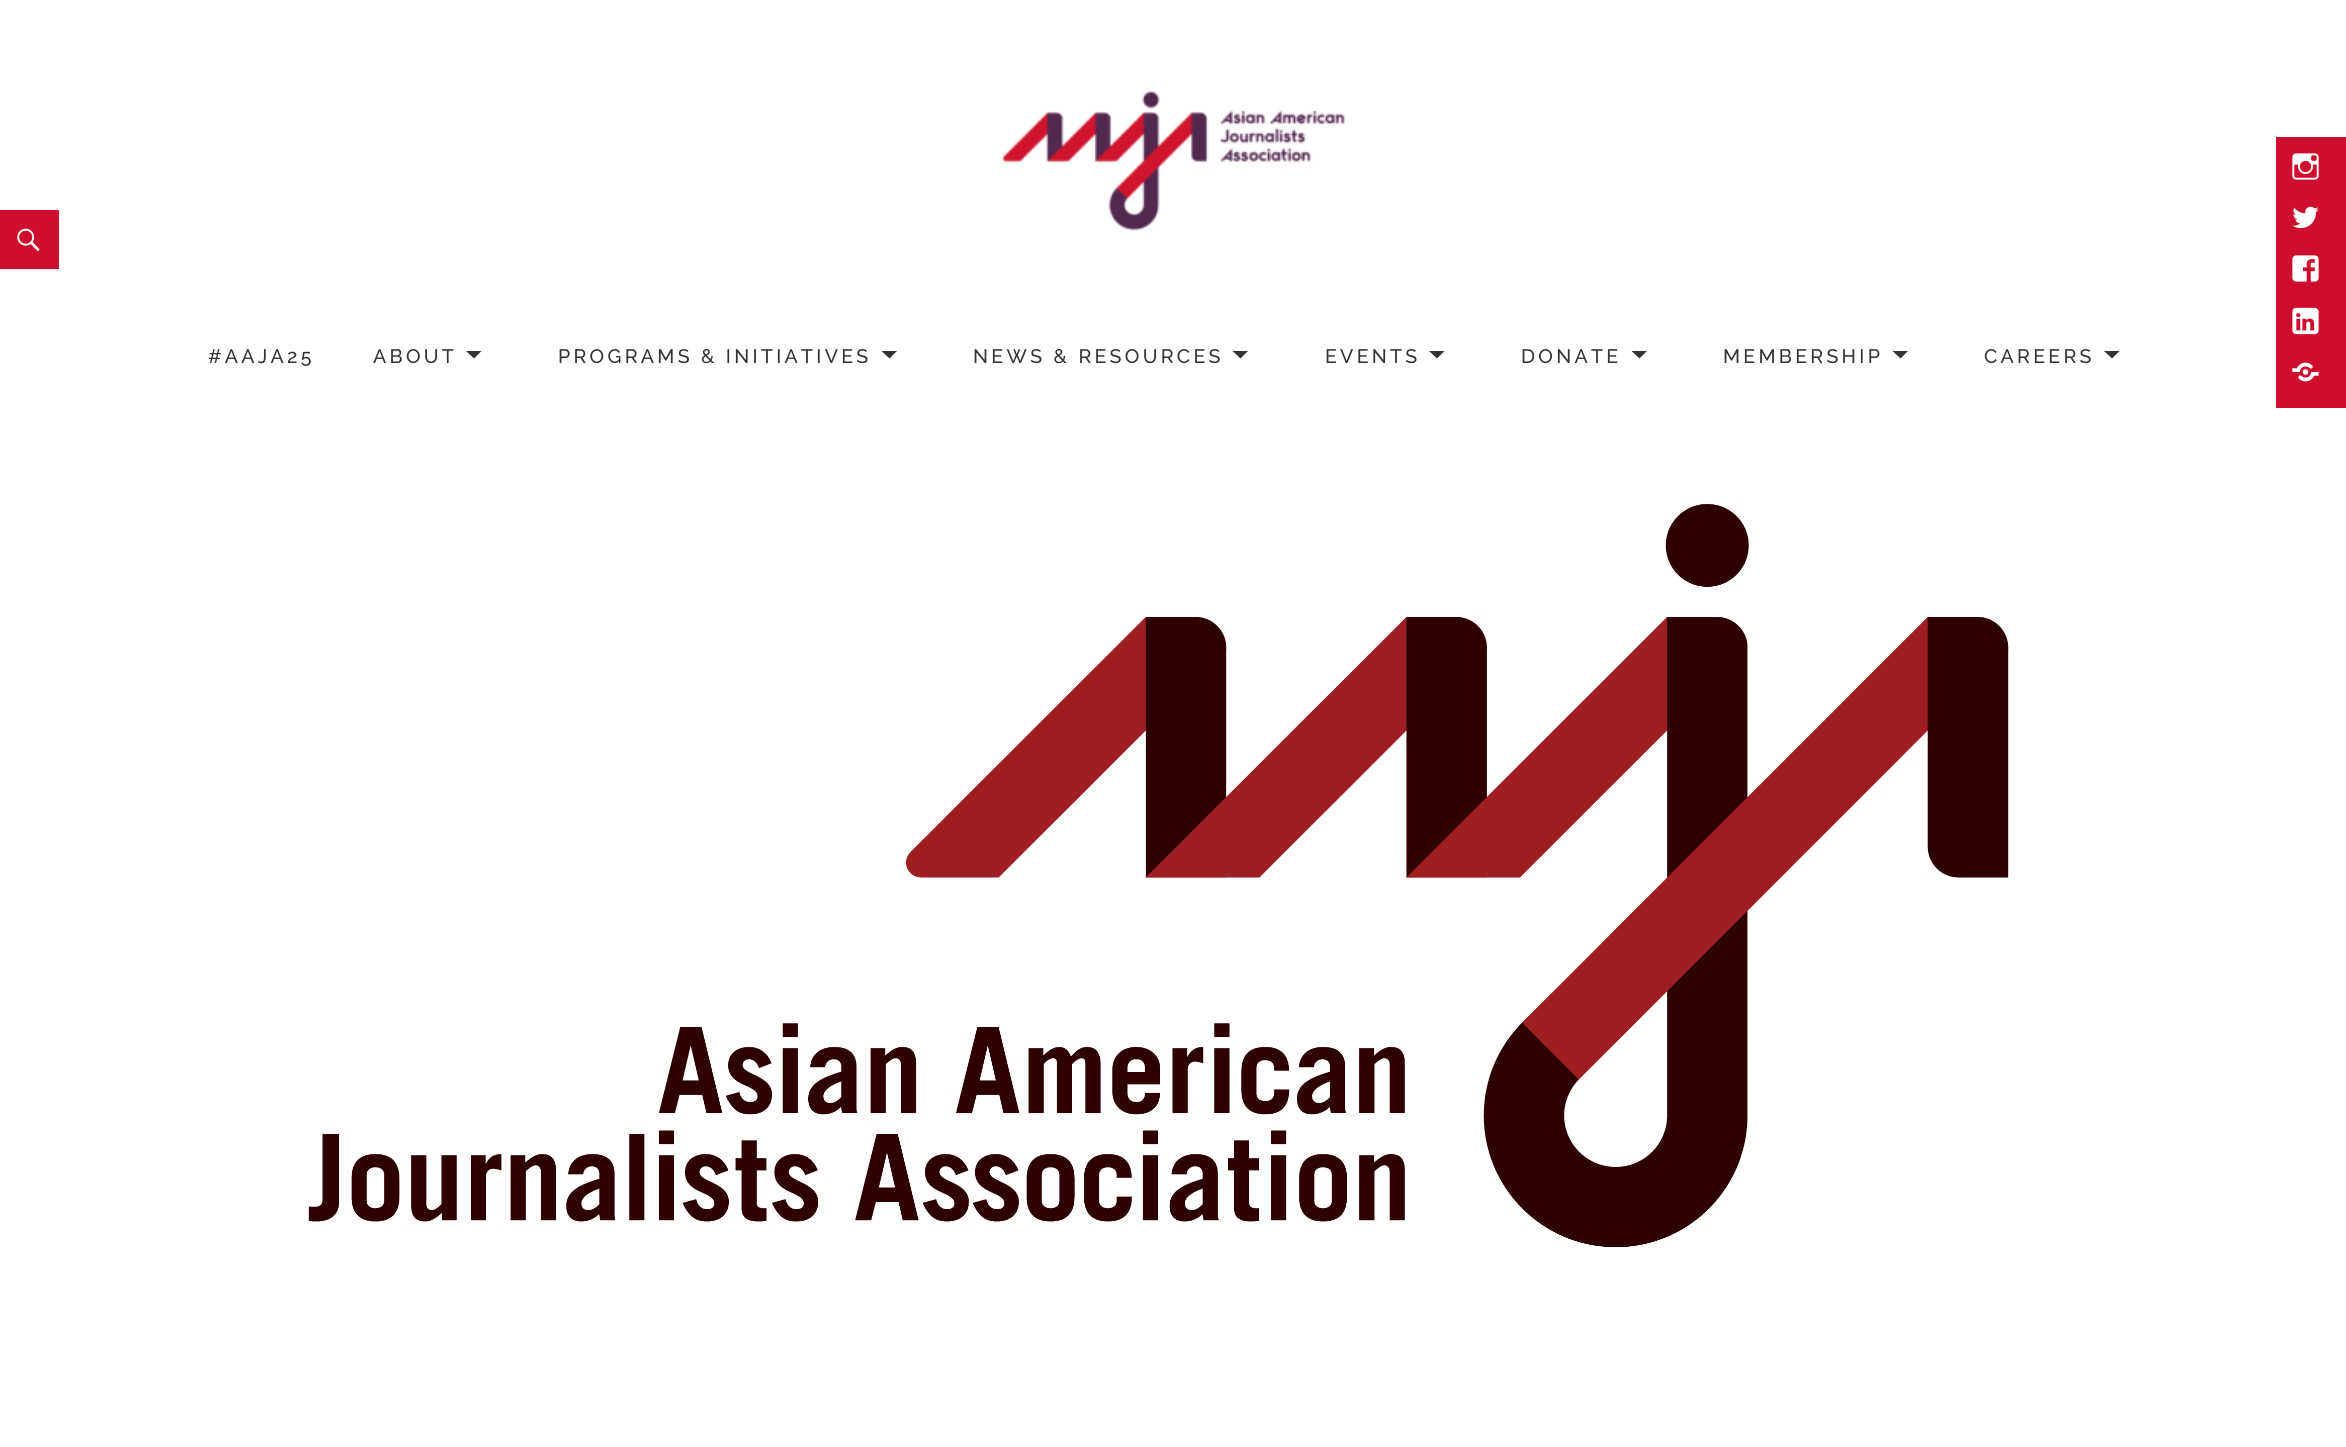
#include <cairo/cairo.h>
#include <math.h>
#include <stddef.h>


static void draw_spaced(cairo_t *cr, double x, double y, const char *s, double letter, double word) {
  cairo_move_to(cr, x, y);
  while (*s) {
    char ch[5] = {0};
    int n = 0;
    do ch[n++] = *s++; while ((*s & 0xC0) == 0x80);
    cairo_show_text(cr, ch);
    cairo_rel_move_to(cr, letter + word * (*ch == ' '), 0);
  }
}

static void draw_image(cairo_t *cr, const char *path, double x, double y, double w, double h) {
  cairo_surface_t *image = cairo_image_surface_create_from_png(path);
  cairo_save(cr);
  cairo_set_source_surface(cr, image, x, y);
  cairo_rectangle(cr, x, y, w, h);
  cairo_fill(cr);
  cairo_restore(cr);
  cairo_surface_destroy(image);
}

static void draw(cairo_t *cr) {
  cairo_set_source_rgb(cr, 1, 1, 1);
  cairo_paint(cr);
  cairo_set_source_rgb(cr, 206 / 255.0, 14 / 255.0, 45 / 255.0);
  cairo_rectangle(cr, 0, 210, 59, 59);
  cairo_fill(cr);
  draw_image(cr, "images/1.png", 17, 228, 23, 24);
  cairo_rectangle(cr, 2276, 137, 70, 271);
  cairo_fill(cr);
  draw_image(cr, "images/2.png", 2292, 153, 27, 27);
  draw_image(cr, "images/3.png", 2292, 206, 27, 23);
  draw_image(cr, "images/4.png", 2292, 255, 27, 27);
  draw_image(cr, "images/5.png", 2292, 307, 27, 28);
  draw_image(cr, "images/6.png", 2292, 362, 27, 20);
  draw_image(cr, "images/7.png", 1001, 90, 345, 141);
  cairo_set_source_rgb(cr, 51 / 255.0, 51 / 255.0, 51 / 255.0);
  cairo_new_path(cr);
  cairo_move_to(cr, 466, 351);
  cairo_line_to(cr, 481.5, 351);
  cairo_line_to(cr, 474, 358.5);
  cairo_close_path(cr);
  cairo_fill(cr);
  cairo_new_path(cr);
  cairo_move_to(cr, 881.5, 351);
  cairo_line_to(cr, 897, 351);
  cairo_line_to(cr, 889.5, 358.5);
  cairo_close_path(cr);
  cairo_fill(cr);
  cairo_new_path(cr);
  cairo_move_to(cr, 1232.5, 351);
  cairo_line_to(cr, 1248, 351);
  cairo_line_to(cr, 1240.5, 358.5);
  cairo_close_path(cr);
  cairo_fill(cr);
  cairo_new_path(cr);
  cairo_move_to(cr, 1429, 351);
  cairo_line_to(cr, 1444.5, 351);
  cairo_line_to(cr, 1437, 358.5);
  cairo_close_path(cr);
  cairo_fill(cr);
  cairo_new_path(cr);
  cairo_move_to(cr, 1631.5, 351);
  cairo_line_to(cr, 1647, 351);
  cairo_line_to(cr, 1639.5, 358.5);
  cairo_close_path(cr);
  cairo_fill(cr);
  cairo_new_path(cr);
  cairo_move_to(cr, 1892.5, 351);
  cairo_line_to(cr, 1908, 351);
  cairo_line_to(cr, 1900.5, 358.5);
  cairo_close_path(cr);
  cairo_fill(cr);
  cairo_new_path(cr);
  cairo_move_to(cr, 2104, 351);
  cairo_line_to(cr, 2119.5, 351);
  cairo_line_to(cr, 2112, 358.5);
  cairo_close_path(cr);
  cairo_fill(cr);
  draw_image(cr, "images/8.png", 308, 504, 1701, 744);
  cairo_select_font_face(cr, "Raleway Medium", CAIRO_FONT_SLANT_NORMAL, CAIRO_FONT_WEIGHT_NORMAL);
  cairo_set_font_size(cr, 19.5);
  draw_spaced(cr, 208, 363, "#AAJA25", 3.3, 0);
  draw_spaced(cr, 373, 363, "ABOUT", 3.3, 0);
  draw_spaced(cr, 558, 363, "PROGRAMS & INITIATIVES", 3.3, 0);
  draw_spaced(cr, 973, 363, "NEWS & RESOURCES", 3.3, 0);
  draw_spaced(cr, 1325, 363, "EVENTS", 3.3, 0);
  draw_spaced(cr, 1521, 363, "DONATE", 3.3, 0);
  draw_spaced(cr, 1723, 363, "MEMBERSHIP", 3.3, 0);
  draw_spaced(cr, 1984, 363, "CAREERS", 3.3, 0);
}

int main(void) {
  cairo_surface_t *surface = cairo_image_surface_create(CAIRO_FORMAT_RGB24, 2346, 1447);
  cairo_t *cr = cairo_create(surface);
  cairo_font_options_t *options = cairo_font_options_create();
  cairo_font_options_set_hint_metrics(options, CAIRO_HINT_METRICS_OFF);
  cairo_font_options_set_hint_style(options, CAIRO_HINT_STYLE_NONE);
  cairo_set_font_options(cr, options);
  cairo_set_miter_limit(cr, 4);
  draw(cr);
  cairo_surface_write_to_png(surface, "out.png");
  cairo_font_options_destroy(options);
  cairo_destroy(cr);
  cairo_surface_destroy(surface);
  return 0;
}
